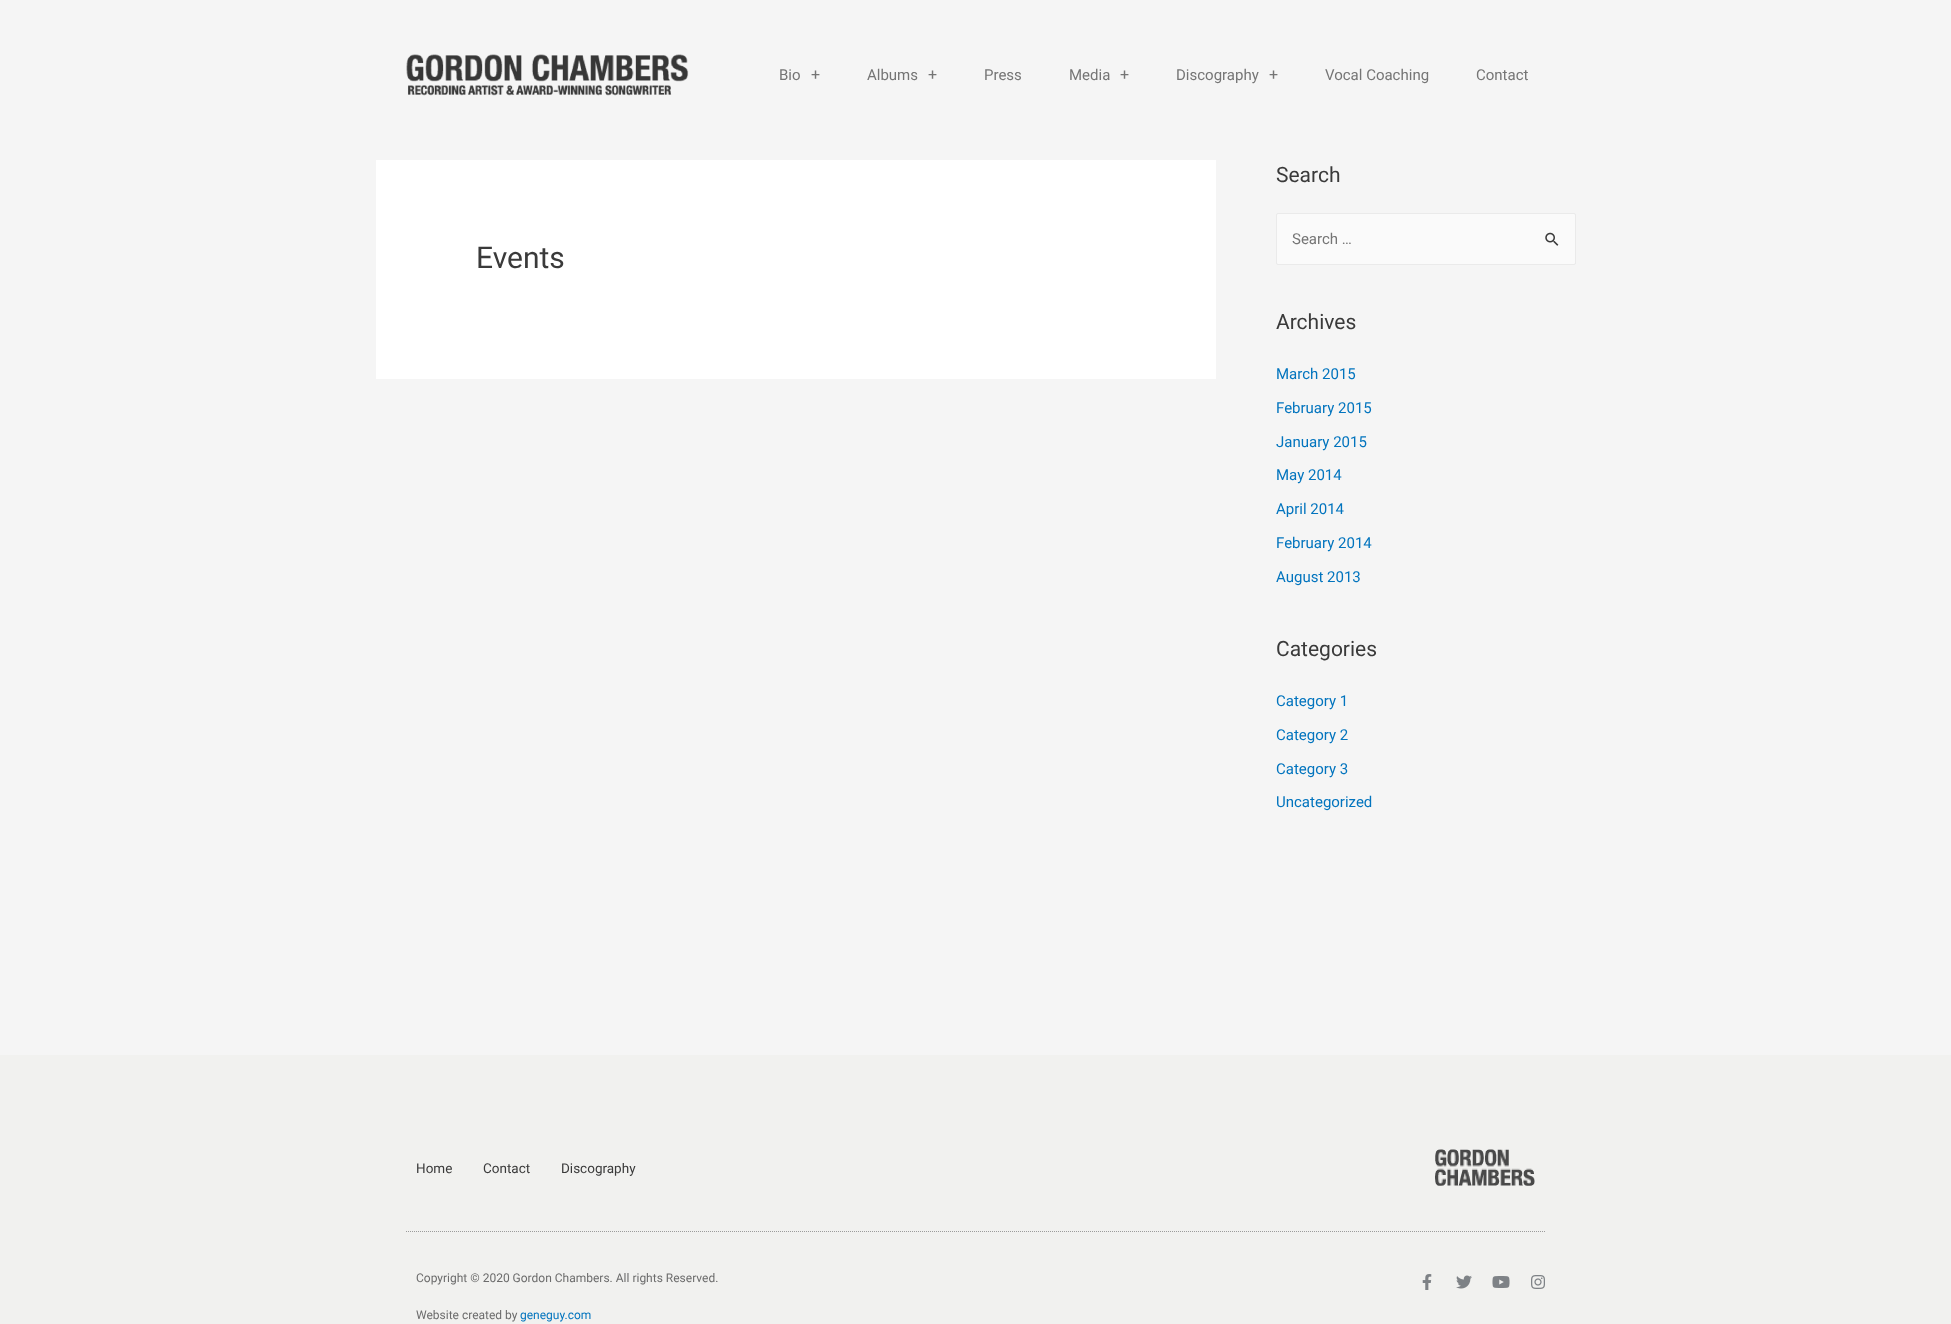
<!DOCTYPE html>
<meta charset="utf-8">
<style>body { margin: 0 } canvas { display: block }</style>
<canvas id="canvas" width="1951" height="1324"></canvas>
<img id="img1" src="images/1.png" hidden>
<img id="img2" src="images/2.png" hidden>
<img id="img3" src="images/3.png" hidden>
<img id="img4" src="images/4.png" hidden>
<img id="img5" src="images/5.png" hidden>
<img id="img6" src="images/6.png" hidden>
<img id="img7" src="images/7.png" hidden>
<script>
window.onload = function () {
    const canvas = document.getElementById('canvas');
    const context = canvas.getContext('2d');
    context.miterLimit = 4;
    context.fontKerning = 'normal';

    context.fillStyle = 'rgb(245, 245, 245)';
    context.fillRect(0, 0, 1951, 1324);
    context.drawImage(document.getElementById('img1'), 406, 54, 283, 42);
    context.fillStyle = 'rgb(255, 255, 255)';
    context.fillRect(376, 160, 840, 219);
    context.fillStyle = 'rgb(250, 250, 250)';
    context.beginPath();
    context.roundRect(1276.5, 213.5, 299, 51, 1.5);
    context.fill();
    context.strokeStyle = 'rgb(234, 234, 234)';
    context.stroke();
    context.drawImage(document.getElementById('img2'), 1545, 232, 14, 14);
    context.fillStyle = 'rgb(241, 241, 239)';
    context.fillRect(0, 1055, 1951, 269);
    context.beginPath();
    context.moveTo(406, 1231.5);
    context.lineTo(1546, 1231.5);
    context.strokeStyle = 'rgb(155, 155, 155)';
    context.setLineDash([1, 1]);
    context.stroke();
    context.drawImage(document.getElementById('img3'), 1435, 1149, 100, 37);
    context.drawImage(document.getElementById('img4'), 1422, 1274, 10, 16);
    context.drawImage(document.getElementById('img5'), 1456, 1275, 16, 14);
    context.drawImage(document.getElementById('img6'), 1492, 1276, 18, 12);
    context.drawImage(document.getElementById('img7'), 1531, 1275, 14, 14);
    context.font = '15px Roboto';
    context.fillStyle = 'rgb(117, 117, 117)';
    context.fillText('Bio', 779, 80);
    context.font = '16px Roboto';
    context.fillText('+', 811, 80);
    context.font = '15px Roboto';
    context.fillText('Albums', 867, 80);
    context.font = '16px Roboto';
    context.fillText('+', 928, 80);
    context.font = '15px Roboto';
    context.fillText('Press', 984, 80);
    context.fillText('Media', 1069, 80);
    context.font = '16px Roboto';
    context.fillText('+', 1120, 80);
    context.font = '15px Roboto';
    context.fillText('Discography', 1176, 80);
    context.font = '16px Roboto';
    context.fillText('+', 1269, 80);
    context.font = '15px Roboto';
    context.fillText('Vocal Coaching', 1325, 80);
    context.fillText('Contact', 1476, 80);
    context.font = '30px Roboto';
    context.fillStyle = 'rgb(58, 58, 58)';
    context.fillText('Events', 476, 268);
    context.font = '21px Roboto';
    context.fillText('Search', 1276, 182);
    context.font = '15px Roboto';
    context.fillStyle = 'rgb(117, 117, 117)';
    context.fillText('Search …', 1292, 244);
    context.font = '21px Roboto';
    context.fillStyle = 'rgb(58, 58, 58)';
    context.fillText('Archives', 1276, 329);
    context.font = '15px Roboto';
    context.fillStyle = 'rgb(2, 116, 190)';
    context.fillText('March 2015', 1276, 379);
    context.fillText('February 2015', 1276, 413);
    context.fillText('January 2015', 1276, 447);
    context.fillText('May 2014', 1276, 480);
    context.fillText('April 2014', 1276, 514);
    context.fillText('February 2014', 1276, 548);
    context.fillText('August 2013', 1276, 582);
    context.font = '21px Roboto';
    context.fillStyle = 'rgb(58, 58, 58)';
    context.fillText('Categories', 1276, 656);
    context.font = '15px Roboto';
    context.fillStyle = 'rgb(2, 116, 190)';
    context.fillText('Category 1', 1276, 706);
    context.fillText('Category 2', 1276, 740);
    context.fillText('Category 3', 1276, 774);
    context.fillText('Uncategorized', 1276, 807);
    context.font = '13.5px Roboto';
    context.fillStyle = 'rgb(58, 58, 58)';
    context.fillText('Home', 416, 1173);
    context.fillText('Contact', 483, 1173);
    context.fillText('Discography', 561, 1173);
    context.font = '12px Roboto';
    context.fillStyle = 'rgb(108, 108, 108)';
    context.fillText('Copyright © 2020 Gordon Chambers. All rights Reserved.', 416, 1282);
    context.fillText('Website created by', 416, 1319);
    context.fillStyle = 'rgb(2, 116, 190)';
    context.fillText('geneguy.com', 520, 1319);
};
</script>
